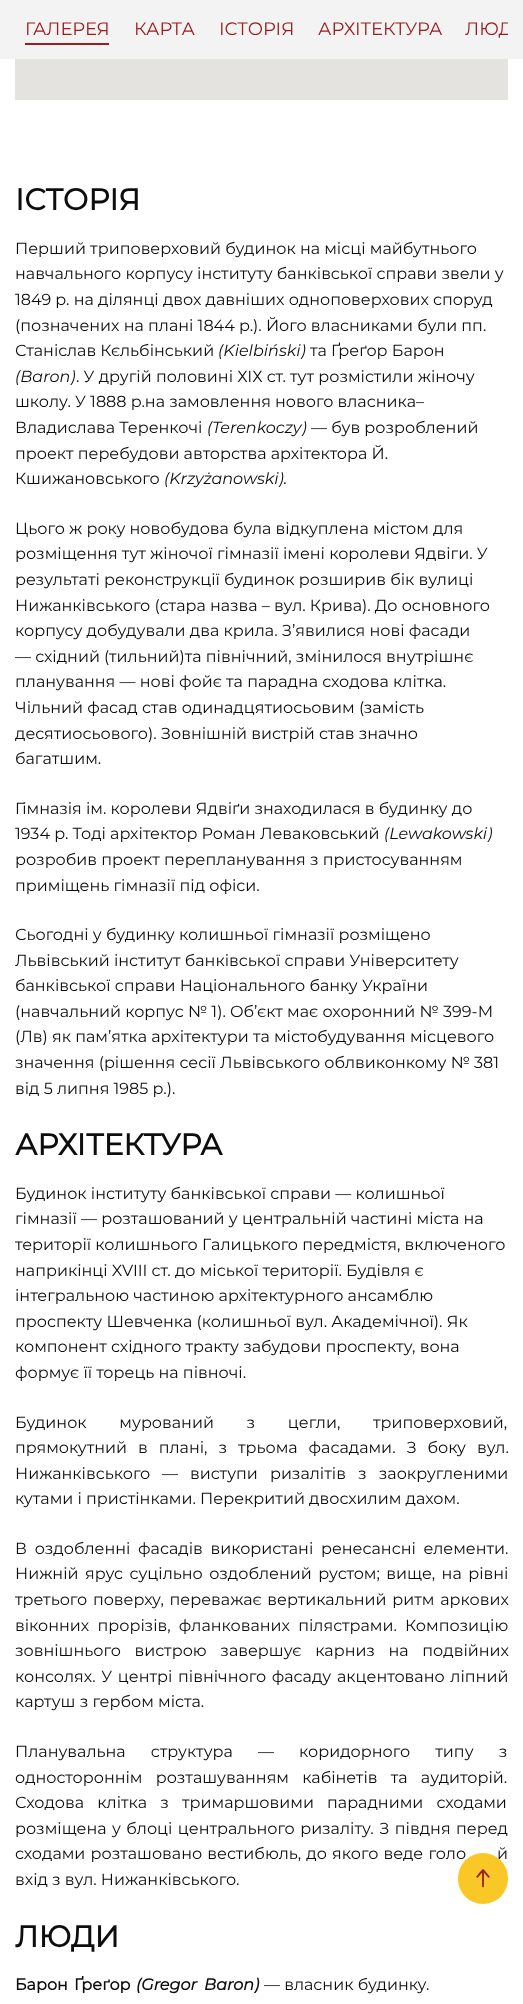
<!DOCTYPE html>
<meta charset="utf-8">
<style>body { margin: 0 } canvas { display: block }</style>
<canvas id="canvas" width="523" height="2004"></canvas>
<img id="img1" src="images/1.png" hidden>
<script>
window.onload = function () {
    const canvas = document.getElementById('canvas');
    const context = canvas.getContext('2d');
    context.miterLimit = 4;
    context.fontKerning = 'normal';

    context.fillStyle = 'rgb(255, 255, 255)';
    context.fillRect(0, 0, 523, 2004);
    context.fillStyle = 'rgb(243, 243, 243)';
    context.fillRect(0, 0, 523, 59);
    context.fillStyle = 'rgb(155, 29, 32)';
    context.fillRect(25, 43, 84, 2);
    context.fillStyle = 'rgb(229, 227, 223)';
    context.fillRect(15, 59, 493, 41);
    context.font = '18px Montserrat';
    context.fillStyle = 'rgb(155, 29, 32)';
    context.fillText('ГАЛЕРЕЯ', 25, 35);
    context.fillText('КАРТА', 134, 35);
    context.fillText('ІСТОРІЯ', 219, 35);
    context.fillText('АРХІТЕКТУРА', 318, 35);
    context.save();
    context.beginPath();
    context.rect(15, 8, 493, 43);
    context.clip();
    context.fillText('ЛЮД', 465, 35);
    context.restore();
    context.font = 'bold 30px Montserrat';
    context.fillStyle = 'rgb(13, 13, 13)';
    context.fillText('ІСТОРІЯ', 15, 210);
    context.font = '16px Montserrat';
    context.fillText('Перший триповерховий будинок на місці майбутнього', 15, 254);
    context.fillText('навчального корпусу інституту банківської справи звели у', 15, 279);
    context.fillText('1849 р. на ділянці двох давніших одноповерхових споруд', 15, 305);
    context.fillText('(позначених на плані 1844 р.). Його власниками були пп.', 15, 331);
    context.fillText('Станіслав Кєльбінський', 15, 356);
    context.font = 'italic 16px Montserrat';
    context.fillText('(Kielbiński)', 218, 356);
    context.font = '16px Montserrat';
    context.fillText('та Ґреґор Барон', 310, 356);
    context.font = 'italic 16px Montserrat';
    context.fillText('(Baron)', 15, 382);
    context.font = '16px Montserrat';
    context.fillText('. У другій половині ХІХ ст. тут розмістили жіночу', 76, 382);
    context.fillText('школу. У 1888 р.на замовлення нового власника–', 15, 407);
    context.fillText('Владислава Теренкочі', 15, 433);
    context.font = 'italic 16px Montserrat';
    context.fillText('(Terenkoczy)', 207, 433);
    context.font = '16px Montserrat';
    context.fillText('— був розроблений', 311, 433);
    context.fillText('проект перебудови авторства архітектора Й.', 15, 459);
    context.fillText('Кшижановського', 15, 484);
    context.font = 'italic 16px Montserrat';
    context.fillText('(Krzyżanowski).', 164, 484);
    context.font = '16px Montserrat';
    context.fillText('Цього ж року новобудова була відкуплена містом для', 15, 534);
    context.fillText('розміщення тут жіночої гімназії імені королеви Ядвіги. У', 15, 559);
    context.fillText('результаті реконструкції будинок розширив бік вулиці', 15, 585);
    context.fillText('Нижанківського (стара назва – вул. Крива). До основного', 15, 611);
    context.fillText('корпусу добудували два крила. З’явилися нові фасади', 15, 636);
    context.fillText('— східний (тильний)та північний, змінилося внутрішнє', 15, 662);
    context.fillText('планування — нові фойє та парадна сходова клітка.', 15, 687);
    context.fillText('Чільний фасад став одинадцятиосьовим (замість', 15, 713);
    context.fillText('десятиосьового). Зовнішній вистрій став значно', 15, 739);
    context.fillText('багатшим.', 15, 764);
    context.fillText('Гімназія ім. королеви Ядвіґи знаходилася в будинку до', 15, 814);
    context.fillText('1934 р. Тоді архітектор Роман Леваковський', 15, 839);
    context.font = 'italic 16px Montserrat';
    context.fillText('(Lewakowski)', 384, 839);
    context.font = '16px Montserrat';
    context.fillText('розробив проект перепланування з пристосуванням', 15, 865);
    context.fillText('приміщень гімназії під офіси.', 15, 891);
    context.fillText('Сьогодні у будинку колишньої гімназії розміщено', 15, 940);
    context.fillText('Львівський інститут банківської справи Університету', 15, 966);
    context.fillText('банківської справи Національного банку України', 15, 991);
    context.fillText('(навчальний корпус № 1). Об’єкт має охоронний № 399-М', 15, 1017);
    context.fillText('(Лв) як пам’ятка архітектури та містобудування місцевого', 15, 1042);
    context.fillText('значення (рішення сесії Львівського облвиконкому № 381', 15, 1068);
    context.fillText('від 5 липня 1985 р.).', 15, 1094);
    context.font = 'bold 30px Montserrat';
    context.fillText('АРХІТЕКТУРА', 15, 1155);
    context.font = '16px Montserrat';
    context.fillText('Будинок інституту банківської справи — колишньої', 15, 1199);
    context.fillText('гімназії — розташований у центральній частині міста на', 15, 1224);
    context.fillText('території колишнього Галицького передмістя, включеного', 15, 1250);
    context.fillText('наприкінці XVIII ст. до міської території. Будівля є', 15, 1276);
    context.fillText('інтегральною частиною архітектурного ансамблю', 15, 1301);
    context.fillText('проспекту Шевченка (колишньої вул. Академічної). Як', 15, 1327);
    context.fillText('компонент східного тракту забудови проспекту, вона', 15, 1352);
    context.fillText('формує її торець на півночі.', 15, 1378);
    context.wordSpacing = '28.5px';
    context.fillText('Будинок мурований з цегли, триповерховий,', 15, 1428);
    context.wordSpacing = '6.75px';
    context.fillText('прямокутний в плані, з трьома фасадами. З боку вул.', 15, 1453);
    context.wordSpacing = '0px';
    context.fillText('Нижанківського', 15, 1479);
    context.fillText('—', 162, 1479);
    context.wordSpacing = '8px';
    context.fillText('виступи ризалітів з заокругленими', 190, 1479);
    context.wordSpacing = '0px';
    context.fillText('кутами і пристінками. Перекритий двосхилим дахом.', 15, 1504);
    context.wordSpacing = '3.5px';
    context.fillText('В оздобленні фасадів використані ренесансні елементи.', 15, 1554);
    context.wordSpacing = '2.25px';
    context.fillText('Нижній ярус суцільно оздоблений рустом; вище, на рівні', 15, 1579);
    context.wordSpacing = '1.5px';
    context.fillText('третього поверху, переважає вертикальний ритм аркових', 15, 1605);
    context.wordSpacing = '4px';
    context.fillText('віконних прорізів, фланкованих пілястрами. Композицію', 15, 1631);
    context.wordSpacing = '9.5px';
    context.fillText('зовнішнього вистрою завершує карниз на подвійних', 15, 1656);
    context.wordSpacing = '1.5px';
    context.fillText('консолях. У центрі північного фасаду акцентовано ліпний', 15, 1682);
    context.wordSpacing = '0px';
    context.fillText('картуш з гербом міста.', 15, 1707);
    context.wordSpacing = '21px';
    context.fillText('Планувальна структура', 15, 1757);
    context.wordSpacing = '0px';
    context.fillText('—', 258, 1757);
    context.wordSpacing = '21px';
    context.fillText('коридорного типу з', 299, 1757);
    context.wordSpacing = '9px';
    context.fillText('одностороннім розташуванням кабінетів та аудиторій.', 15, 1783);
    context.fillText('Сходова клітка з тримаршовими парадними сходами', 15, 1808);
    context.wordSpacing = '1.25px';
    context.fillText('розміщена у блоці центрального ризаліту. З півдня перед', 15, 1834);
    context.wordSpacing = '1px';
    context.fillText('сходами розташовано вестибюль, до якого веде голо', 15, 1859);
    context.fillText('й', 497, 1859);
    context.wordSpacing = '0px';
    context.fillText('вхід з вул. Нижанківського.', 15, 1885);
    context.font = 'bold 30px Montserrat';
    context.fillText('ЛЮДИ', 15, 1947);
    context.wordSpacing = '2px';
    context.font = 'bold 16px Montserrat';
    context.fillText('Барон Ґреґор', 15, 1990);
    context.wordSpacing = '3px';
    context.font = 'italic bold 16px Montserrat';
    context.fillText('(Gregor Baron)', 136, 1990);
    context.wordSpacing = '0px';
    context.font = '16px Montserrat';
    context.fillText('— власник будинку.', 264, 1990);
    context.fillStyle = 'rgb(249, 199, 38)';
    context.beginPath();
    context.roundRect(458, 1853, 50, 51, 25);
    context.fill();
    context.drawImage(document.getElementById('img1'), 476, 1869, 14, 19);
};
</script>
